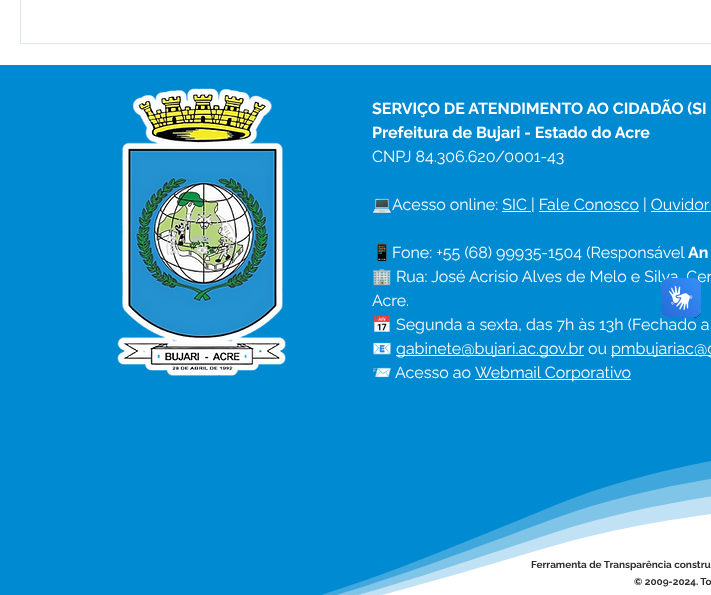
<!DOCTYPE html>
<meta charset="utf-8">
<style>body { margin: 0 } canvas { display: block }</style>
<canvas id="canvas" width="711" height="595"></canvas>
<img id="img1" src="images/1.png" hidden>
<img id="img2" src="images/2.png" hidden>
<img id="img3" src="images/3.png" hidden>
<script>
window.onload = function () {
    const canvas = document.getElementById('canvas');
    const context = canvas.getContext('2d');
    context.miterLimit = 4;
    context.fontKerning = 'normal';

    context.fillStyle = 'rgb(255, 255, 255)';
    context.fillRect(0, 0, 711, 595);
    context.strokeStyle = 'rgb(221, 232, 240)';
    context.strokeRect(20.5, -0.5, 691, 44);
    context.fillStyle = 'rgb(0, 138, 209)';
    context.fillRect(0, 65, 711, 530);
    context.drawImage(document.getElementById('img1'), 117, 88, 169, 288);
    context.fillStyle = 'rgb(255, 255, 255)';
    context.fillRect(502, 211, 29, 1);
    context.fillRect(539, 211, 100, 1);
    context.fillRect(651, 211, 60, 1);
    context.fillRect(396, 355, 188, 1);
    context.fillRect(611, 355, 100, 1);
    context.fillRect(475, 379, 156, 1);
    context.fillStyle = 'rgb(64, 167, 221)';
    context.beginPath();
    context.moveTo(0, 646);
    context.lineTo(0, 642);
    context.bezierCurveTo(232, 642, 353, 588, 553, 506);
    context.bezierCurveTo(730, 433, 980, 436, 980, 436);
    context.lineTo(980, 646);
    context.closePath();
    context.fill();
    context.fillStyle = 'rgb(128, 196, 232)';
    context.beginPath();
    context.moveTo(0, 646);
    context.lineTo(0, 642);
    context.bezierCurveTo(232, 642, 353, 593, 553, 519);
    context.bezierCurveTo(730, 454, 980, 456, 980, 456);
    context.lineTo(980, 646);
    context.closePath();
    context.fill();
    context.fillStyle = 'rgb(192, 226, 244)';
    context.beginPath();
    context.moveTo(0, 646);
    context.lineTo(0, 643);
    context.bezierCurveTo(232, 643, 353, 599, 553, 533);
    context.bezierCurveTo(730, 474, 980, 476, 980, 476);
    context.lineTo(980, 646);
    context.closePath();
    context.fill();
    context.fillStyle = 'rgb(255, 255, 255)';
    context.beginPath();
    context.moveTo(0, 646);
    context.lineTo(0, 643);
    context.bezierCurveTo(232, 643, 353, 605, 553, 546);
    context.bezierCurveTo(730, 494, 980, 496, 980, 496);
    context.lineTo(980, 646);
    context.closePath();
    context.fill();
    context.font = 'bold 16px Raleway';
    context.fillText('SERVIÇO DE ATENDIMENTO AO CIDADÃO (SI', 372, 114);
    context.fillText('Prefeitura de Bujari - Estado do Acre', 372, 138);
    context.font = '16px Raleway';
    context.fillText('CNPJ 84.306.620/0001-43', 372, 162);
    context.font = '16px Noto Color Emoji';
    context.fillText('💻', 372, 210);
    context.font = '16px Raleway';
    context.fillText('Acesso online: SIC | Fale Conosco | Ouvidor', 392, 210);
    context.font = '16px Noto Color Emoji';
    context.fillText('📱', 372, 258);
    context.font = '16px Raleway';
    context.fillText('Fone: +55 (68) 99935-1504 (Responsável', 392, 258);
    context.font = 'bold 16px Raleway';
    context.fillText('An', 688, 258);
    context.font = '16px Noto Color Emoji';
    context.fillText('🏢', 372, 282);
    context.font = '16px Raleway';
    context.fillText('Rua: José Acrisio Alves de Melo e Silva, Cer', 396, 282);
    context.fillText('Acre.', 372, 306);
    context.font = '16px Noto Color Emoji';
    context.fillText('📅', 372, 330);
    context.font = '16px Raleway';
    context.fillText('Segunda a sexta, das 7h às 13h (Fechado a', 396, 330);
    context.font = '16px Noto Color Emoji';
    context.fillText('📧', 372, 354);
    context.font = '16px Raleway';
    context.fillText('gabinete@bujari.ac.gov.br', 396, 354);
    context.fillText('ou', 588, 354);
    context.fillText('pmbujariac@g', 611, 354);
    context.font = '16px Noto Color Emoji';
    context.fillText('📨', 372, 378);
    context.font = '16px Raleway';
    context.fillText('Acesso ao', 395, 378);
    context.fillText('Webmail Corporativo', 475, 378);
    context.font = 'bold 10px Raleway';
    context.fillStyle = 'rgb(47, 46, 46)';
    context.fillText('Ferramenta de Transparência constru', 531, 568);
    context.fillText('© 2009-2024. To', 634, 585);
    context.drawImage(document.getElementById('img2'), 661, 278, 40, 40);
    context.drawImage(document.getElementById('img3'), 661, 278, 40, 40);
};
</script>
